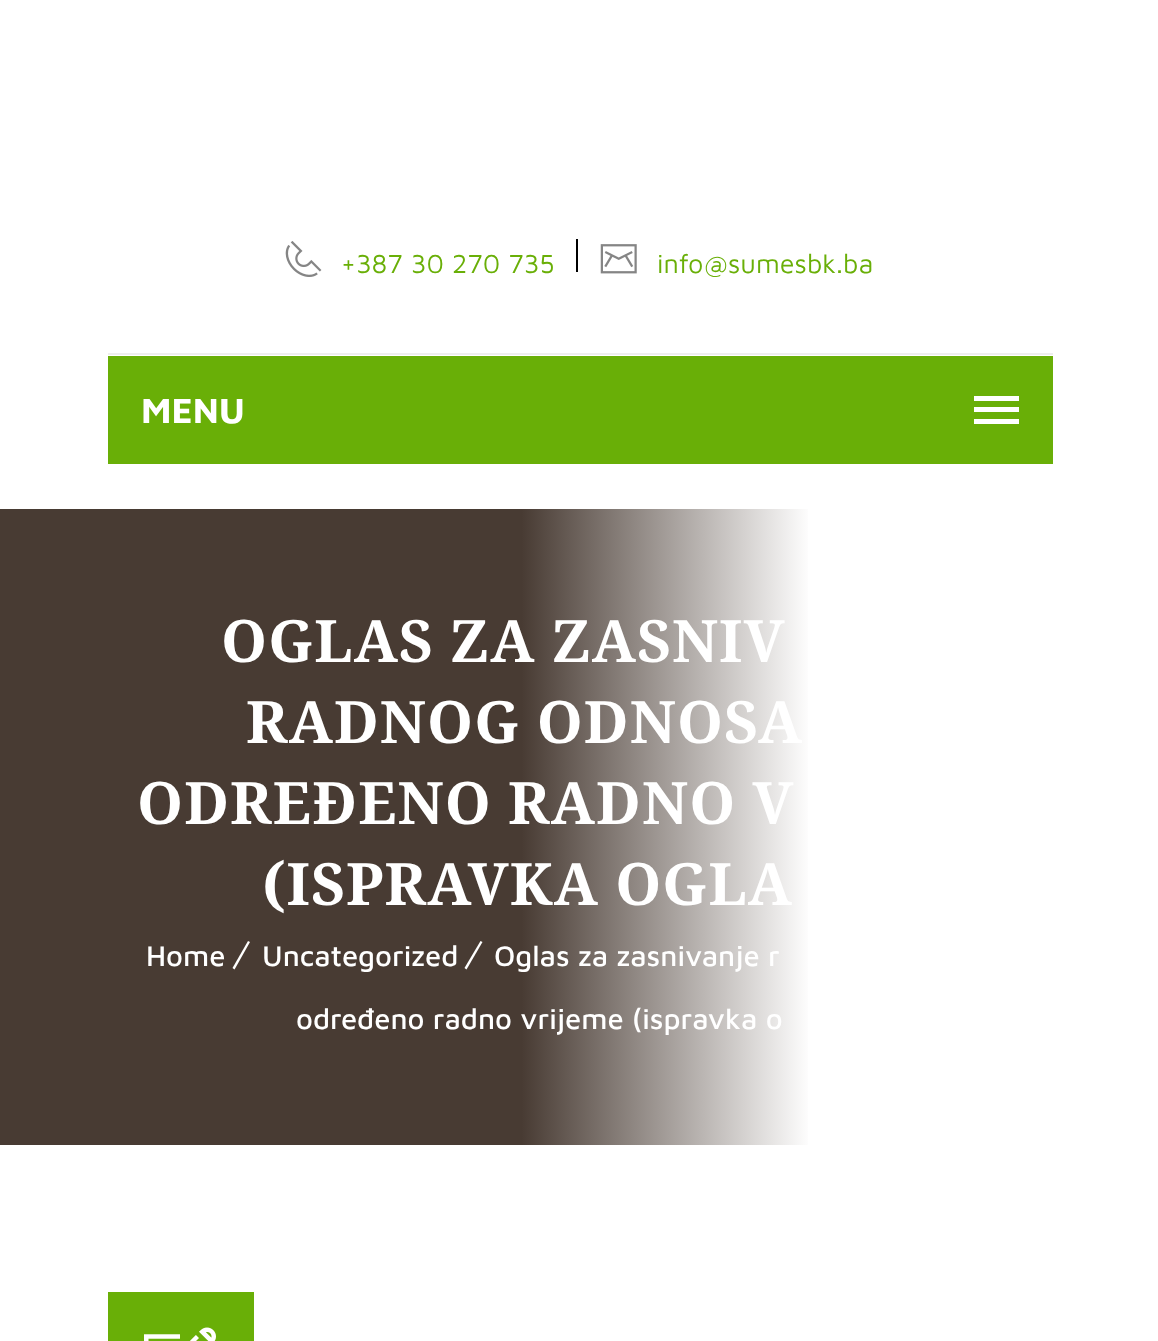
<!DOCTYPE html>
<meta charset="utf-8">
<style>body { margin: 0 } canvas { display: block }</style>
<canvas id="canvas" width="1158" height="1341"></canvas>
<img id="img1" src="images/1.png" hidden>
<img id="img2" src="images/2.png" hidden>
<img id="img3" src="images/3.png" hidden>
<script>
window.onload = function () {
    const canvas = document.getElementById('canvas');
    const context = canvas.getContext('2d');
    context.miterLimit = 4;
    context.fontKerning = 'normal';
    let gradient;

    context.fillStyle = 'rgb(255, 255, 255)';
    context.fillRect(0, 0, 1158, 1341);
    context.drawImage(document.getElementById('img1'), 285, 241, 37, 36);
    context.fillStyle = 'rgb(0, 0, 0)';
    context.fillRect(576, 239, 2, 33);
    context.drawImage(document.getElementById('img2'), 600, 244, 37, 30);
    context.fillStyle = 'rgb(238, 238, 238)';
    context.fillRect(108, 353, 945, 2);
    context.fillStyle = 'rgb(105, 175, 7)';
    context.fillRect(108, 356, 945, 108);
    context.fillStyle = 'rgb(255, 255, 255)';
    context.fillRect(974, 407, 45, 5);
    context.fillRect(974, 396, 45, 5);
    context.fillRect(974, 419, 45, 5);
    gradient = context.createLinearGradient(0, 827, 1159, 827);
    gradient.addColorStop(0.45, 'rgb(72, 59, 51)');
    gradient.addColorStop(0.7, 'rgb(255, 255, 255)');
    context.fillStyle = gradient;
    context.fillRect(0, 509, 808, 636);
    context.fillStyle = 'rgb(255, 255, 255)';
    context.beginPath();
    context.moveTo(248, 941);
    context.lineTo(250, 942);
    context.lineTo(234.5, 969.5);
    context.lineTo(232.5, 968);
    context.closePath();
    context.fill();
    context.beginPath();
    context.moveTo(480.5, 941);
    context.lineTo(482.5, 942);
    context.lineTo(466.5, 969.5);
    context.lineTo(464.5, 968);
    context.closePath();
    context.fill();
    context.fillStyle = 'rgb(105, 175, 7)';
    context.fillRect(108, 1292, 146, 49);
    context.drawImage(document.getElementById('img3'), 144, 1327, 72, 14);
    context.font = '27px Maven Pro';
    context.fillText('+387 30 270 735', 341, 273);
    context.fillText('info@sumesbk.ba', 657, 273);
    context.font = 'bold 36px Maven Pro';
    context.fillStyle = 'rgb(255, 255, 255)';
    context.fillText('MENU', 141, 423);
    context.letterSpacing = '1.1px';
    context.font = 'bold 58.5px Noto Serif';
    context.fillText('OGLAS ZA ZASNIV', 221, 662);
    context.fillText('RADNOG ODNOSA', 246, 743);
    context.fillText('ODREĐENO RADNO V', 137, 824);
    context.fillText('(ISPRAVKA OGLA', 262, 905);
    context.letterSpacing = '0px';
    context.font = '500 29.25px Maven Pro';
    context.fillText('Home', 146, 966);
    context.fillText('Uncategorized', 262, 966);
    context.fillText('Oglas za zasnivanje r', 494, 966);
    context.fillText('određeno radno vrijeme (ispravka o', 296, 1029);
};
</script>
